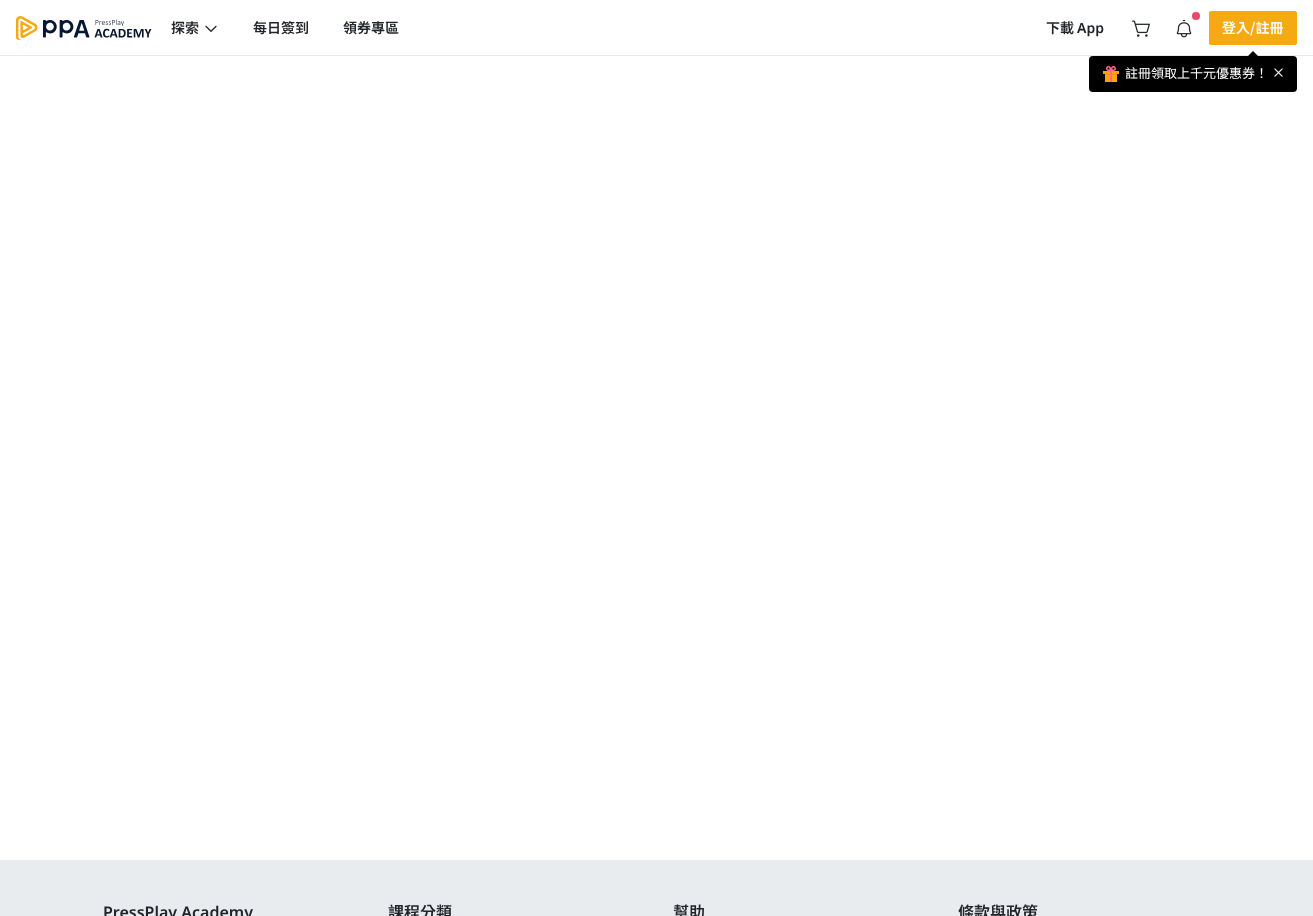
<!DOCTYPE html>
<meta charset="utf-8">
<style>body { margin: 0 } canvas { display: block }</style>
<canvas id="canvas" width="1313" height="916"></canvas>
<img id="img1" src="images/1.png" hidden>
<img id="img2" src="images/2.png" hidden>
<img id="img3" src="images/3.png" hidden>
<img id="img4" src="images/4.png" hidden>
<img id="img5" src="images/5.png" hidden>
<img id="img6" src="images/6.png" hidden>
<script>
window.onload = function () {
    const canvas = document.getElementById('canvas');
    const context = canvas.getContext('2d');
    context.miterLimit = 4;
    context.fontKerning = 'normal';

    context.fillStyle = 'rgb(255, 255, 255)';
    context.fillRect(0, 0, 1313, 916);
    context.fillStyle = 'rgb(233, 236, 239)';
    context.fillRect(0, 55, 1313, 1);
    context.drawImage(document.getElementById('img1'), 16, 16, 136, 24);
    context.drawImage(document.getElementById('img2'), 205, 25, 12, 7);
    context.drawImage(document.getElementById('img3'), 1132, 20, 18, 17);
    context.fillStyle = 'rgb(232, 73, 103)';
    context.beginPath();
    context.arc(1196, 16, 4, 0, 2 * Math.PI);
    context.fill();
    context.drawImage(document.getElementById('img4'), 1176, 19, 16, 19);
    context.fillStyle = 'rgb(244, 170, 16)';
    context.beginPath();
    context.roundRect(1209.5, 11.5, 87, 33, 1.5);
    context.fill();
    context.strokeStyle = 'rgb(244, 170, 16)';
    context.stroke();
    context.fillStyle = 'rgb(0, 0, 0)';
    context.beginPath();
    context.moveTo(1258, 56);
    context.lineTo(1248, 56);
    context.lineTo(1253, 51);
    context.closePath();
    context.fill();
    context.beginPath();
    context.roundRect(1089, 56, 208, 36, 4);
    context.fill();
    context.drawImage(document.getElementById('img5'), 1103, 66, 16, 16);
    context.drawImage(document.getElementById('img6'), 1274, 68, 9, 9);
    context.fillStyle = 'rgb(233, 236, 239)';
    context.fillRect(0, 860, 1313, 56);
    context.font = '600 14px Noto Sans TC';
    context.fillStyle = 'rgb(33, 37, 41)';
    context.fillText('探索', 171, 33);
    context.fillText('每日簽到', 253, 33);
    context.fillText('領券專區', 343, 33);
    context.fillText('下載', 1046, 33);
    context.font = '600 14px Noto Sans';
    context.fillText('App', 1077, 33);
    context.font = '600 14px Noto Sans TC';
    context.fillStyle = 'rgb(255, 255, 255)';
    context.fillText('登入/註冊', 1222, 33);
    context.font = '13px Noto Sans TC';
    context.fillText('註冊領取上千元優惠券！', 1125, 78);
    context.font = '600 16px Noto Sans';
    context.fillStyle = 'rgb(33, 37, 41)';
    context.fillText('PressPlay Academy', 103, 918);
    context.font = '600 16px Noto Sans TC';
    context.fillText('課程分類', 388, 918);
    context.fillText('幫助', 673, 918);
    context.fillText('條款與政策', 958, 918);
};
</script>
